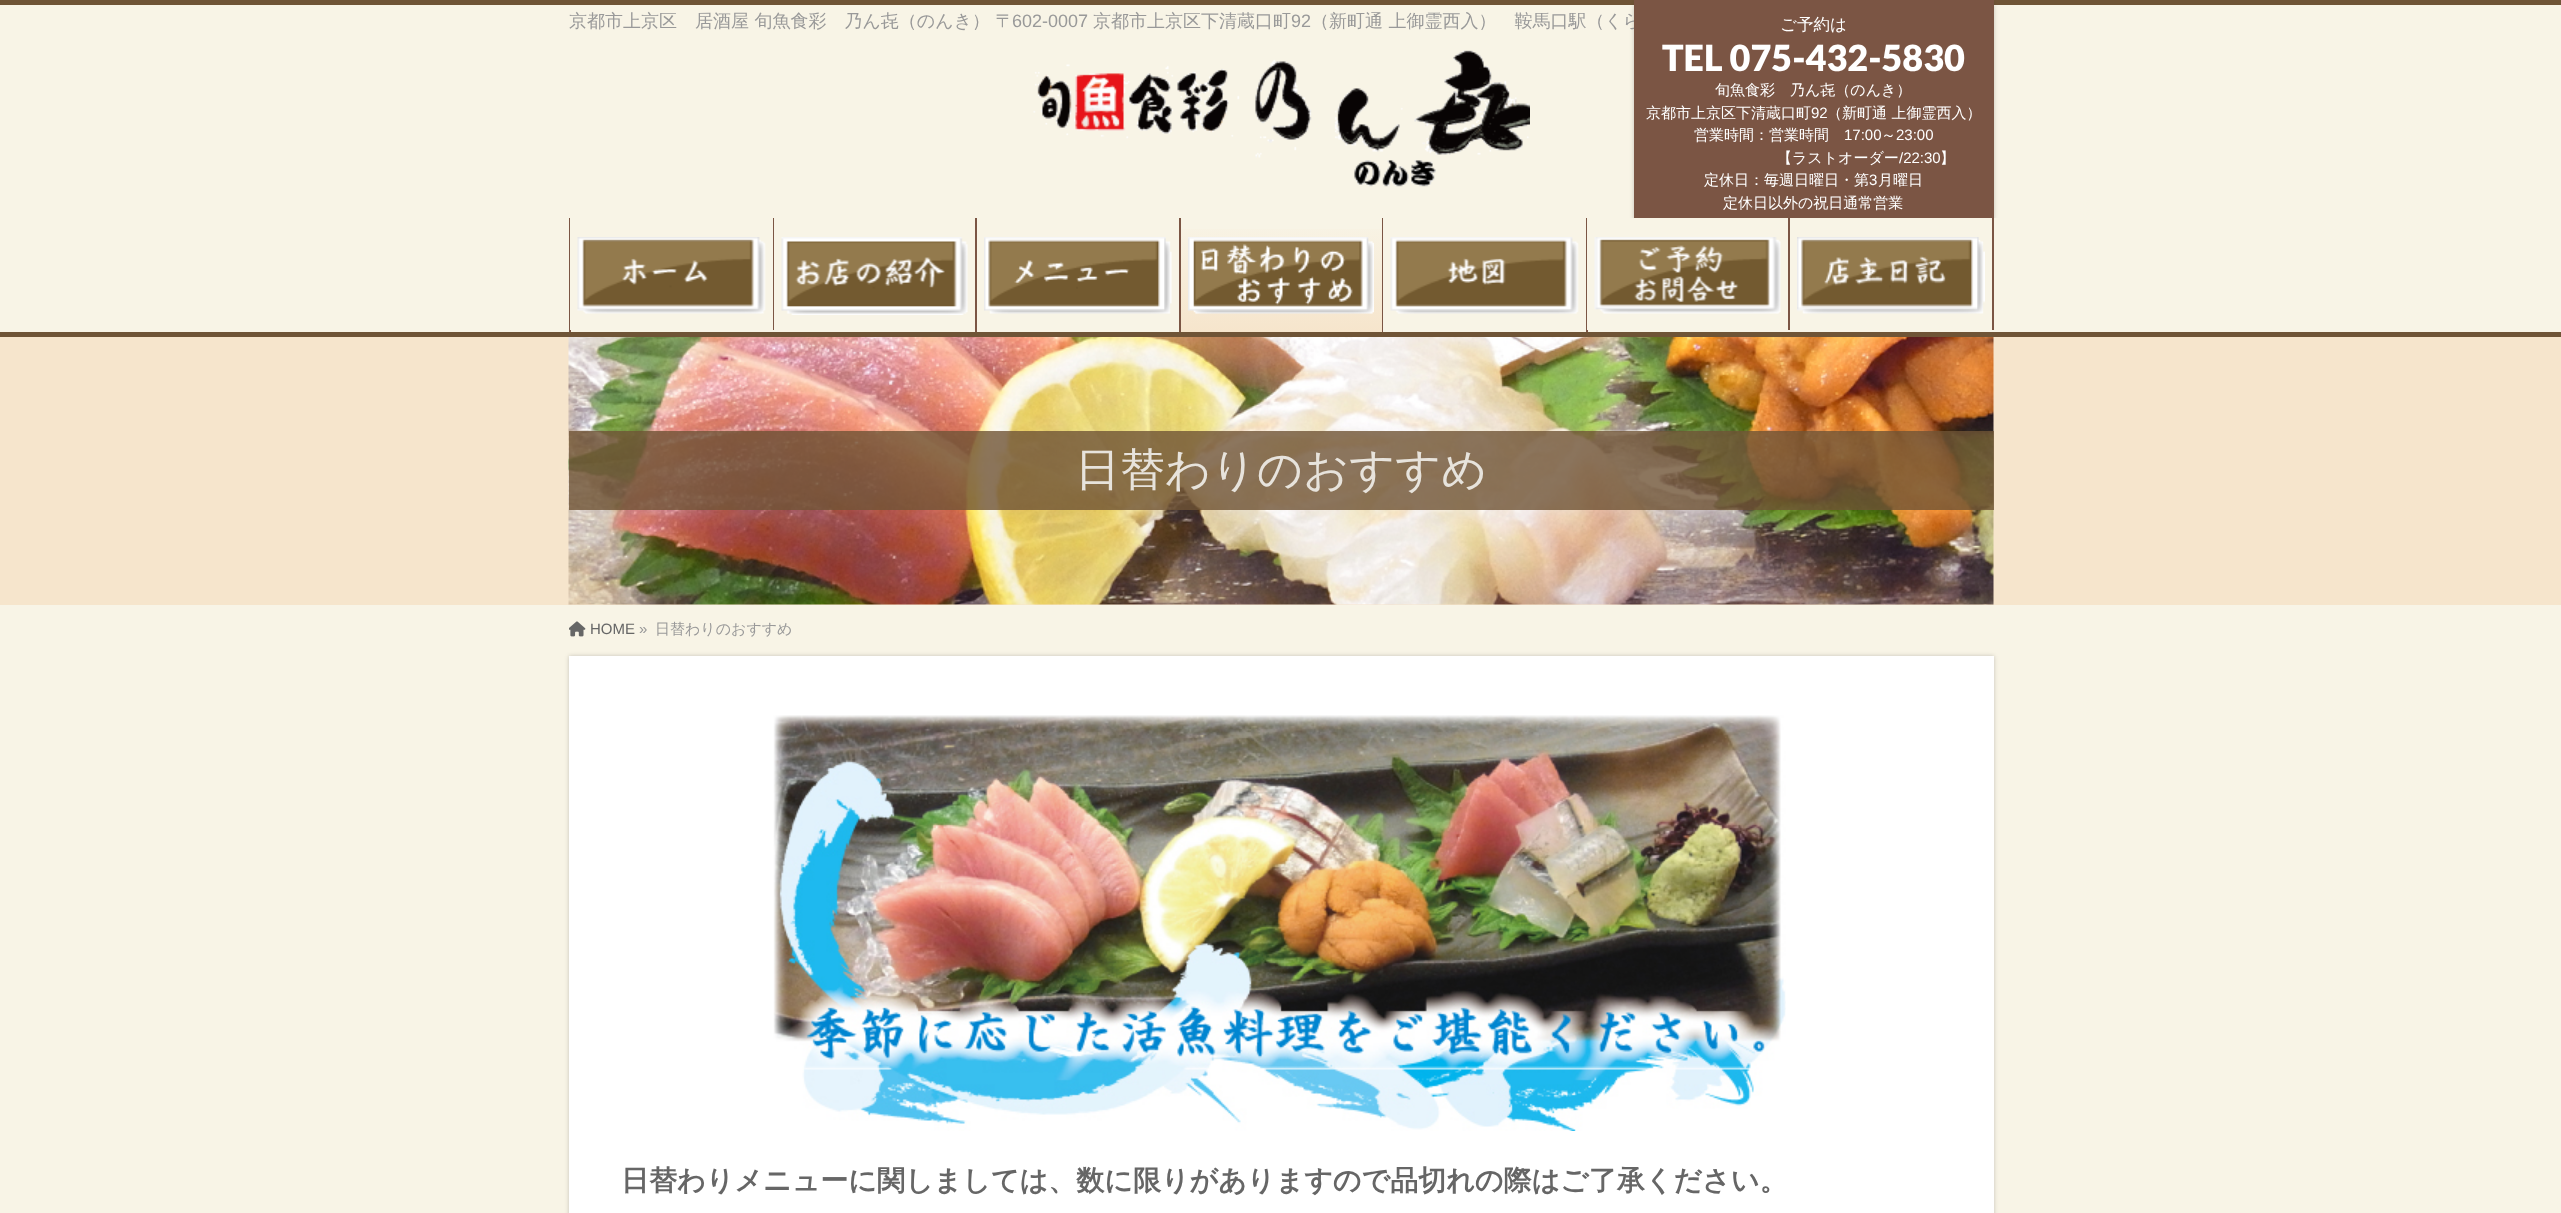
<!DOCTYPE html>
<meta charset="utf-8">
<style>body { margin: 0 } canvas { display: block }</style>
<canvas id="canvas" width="2561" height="1213"></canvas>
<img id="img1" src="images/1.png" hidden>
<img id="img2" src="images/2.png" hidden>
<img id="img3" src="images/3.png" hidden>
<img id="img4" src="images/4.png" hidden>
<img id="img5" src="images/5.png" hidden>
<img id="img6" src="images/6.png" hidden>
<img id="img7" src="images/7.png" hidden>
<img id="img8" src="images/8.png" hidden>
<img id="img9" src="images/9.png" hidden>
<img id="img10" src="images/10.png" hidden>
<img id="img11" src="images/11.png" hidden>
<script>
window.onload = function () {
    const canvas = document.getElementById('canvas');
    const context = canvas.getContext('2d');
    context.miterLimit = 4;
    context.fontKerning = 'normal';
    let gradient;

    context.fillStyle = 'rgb(246, 229, 204)';
    context.fillRect(0, 0, 2561, 1213);
    context.fillStyle = 'rgb(111, 84, 54)';
    context.fillRect(0, 0, 2561, 5);
    context.fillStyle = 'rgb(248, 244, 230)';
    context.fillRect(0, 5, 2561, 213);
    context.drawImage(document.getElementById('img1'), 1033, 50, 497, 137);
    context.fillStyle = 'rgba(0, 0, 0, 0.2)';
    context.filter = 'blur(2px)';
    context.beginPath();
    context.roundRect(1634, 0, 360, 227, 9);
    context.fill();
    context.filter = 'none';
    context.fillStyle = 'rgb(248, 244, 230)';
    context.fillRect(0, 218, 2561, 114);
    context.fillStyle = 'rgb(111, 84, 54)';
    context.fillRect(0, 332, 2561, 5);
    context.fillStyle = 'rgb(123, 85, 68)';
    context.fillRect(569, 218, 2, 114);
    context.fillStyle = 'rgb(248, 244, 230)';
    context.fillRect(570, 218, 1, 112);
    context.fillStyle = 'rgb(123, 85, 68)';
    context.fillRect(773, 218, 1, 112);
    context.drawImage(document.getElementById('img2'), 577, 237, 189, 77);
    context.fillRect(975, 218, 2, 114);
    context.drawImage(document.getElementById('img3'), 781, 237, 187, 78);
    context.fillRect(1179, 218, 2, 114);
    context.drawImage(document.getElementById('img4'), 984, 237, 188, 77);
    gradient = context.createLinearGradient(1281, 218, 1281, 332);
    gradient.addColorStop(0, 'rgb(248, 244, 230)');
    gradient.addColorStop(1, 'rgb(246, 229, 204)');
    context.fillStyle = gradient;
    context.fillRect(1181, 229, 201, 103);
    context.fillStyle = 'rgb(123, 85, 68)';
    context.fillRect(1382, 218, 1, 114);
    context.drawImage(document.getElementById('img5'), 1188, 237, 186, 77);
    context.fillRect(1586, 218, 2, 114);
    context.drawImage(document.getElementById('img6'), 1390, 237, 189, 77);
    context.fillStyle = 'rgb(248, 244, 230)';
    context.fillRect(1587, 218, 1, 112);
    context.fillStyle = 'rgb(123, 85, 68)';
    context.fillRect(1788, 218, 2, 112);
    context.drawImage(document.getElementById('img7'), 1594, 237, 187, 77);
    context.fillRect(1992, 218, 2, 112);
    context.drawImage(document.getElementById('img8'), 1797, 237, 188, 77);
    context.drawImage(document.getElementById('img9'), 568, 337, 1426, 268);
    context.fillStyle = 'rgba(111, 84, 54, 0.8)';
    context.fillRect(569, 431, 1425, 79);
    context.fillStyle = 'rgb(248, 244, 230)';
    context.fillRect(0, 605, 2561, 608);
    context.drawImage(document.getElementById('img10'), 569, 621, 17, 16);
    context.fillStyle = 'rgba(0, 0, 0, 0.2)';
    context.filter = 'blur(2px)';
    context.beginPath();
    context.rect(569, 656, 1425, 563);
    context.fill();
    context.filter = 'none';
    context.fillStyle = 'rgb(255, 255, 255)';
    context.fillRect(569, 656, 1425, 557);
    context.drawImage(document.getElementById('img11'), 773, 715, 1013, 416);
    context.font = '500 18px WenQuanYi Zen Hei';
    context.fillStyle = 'rgb(153, 153, 153)';
    context.fillText('京都市上京区　居酒屋 旬魚食彩　乃ん㐂（のんき） 〒', 569, 27);
    context.font = '18px Liberation Sans';
    context.fillText('602-0007', 1012, 27);
    context.font = '500 18px WenQuanYi Zen Hei';
    context.fillText('京都市上京区下清蔵口町', 1093, 27);
    context.font = '18px Liberation Sans';
    context.fillText('92', 1291, 27);
    context.font = '500 18px WenQuanYi Zen Hei';
    context.fillText('（新町通 上御霊西入）　鞍馬口駅（くら', 1311, 27);
    context.fillStyle = 'rgb(123, 85, 68)';
    context.fillRect(1634, 0, 360, 218);
    context.font = '500 16.5px WenQuanYi Zen Hei';
    context.fillStyle = 'rgb(255, 255, 255)';
    context.fillText('ご予約は', 1780, 30);
    context.font = '900 36px Lato';
    context.fillText('TEL 075-432-5830', 1662, 71);
    context.font = '500 15px WenQuanYi Zen Hei';
    context.fillText('旬魚食彩　乃ん㐂（のんき）', 1715, 95);
    context.fillText('京都市上京区下清蔵口町', 1646, 118);
    context.font = '15px Liberation Sans';
    context.fillText('92', 1811, 118);
    context.font = '500 15px WenQuanYi Zen Hei';
    context.fillText('（新町通 上御霊西入）', 1827, 118);
    context.fillText('営業時間：営業時間', 1694, 140);
    context.font = '15px Liberation Sans';
    context.fillText('17:00', 1844, 140);
    context.font = '500 15px WenQuanYi Zen Hei';
    context.fillText('～', 1881, 140);
    context.font = '15px Liberation Sans';
    context.fillText('23:00', 1896, 140);
    context.font = '500 15px WenQuanYi Zen Hei';
    context.fillText('【ラストオーダー', 1777, 163);
    context.font = '15px Liberation Sans';
    context.fillText('/22:30', 1899, 163);
    context.font = '500 15px WenQuanYi Zen Hei';
    context.fillText('】', 1940, 163);
    context.fillText('定休日：毎週日曜日・第', 1704, 185);
    context.font = '15px Liberation Sans';
    context.fillText('3', 1869, 185);
    context.font = '500 15px WenQuanYi Zen Hei';
    context.fillText('月曜日', 1878, 185);
    context.fillText('定休日以外の祝日通常営業', 1723, 208);
    context.font = '500 45px WenQuanYi Zen Hei';
    context.fillStyle = 'rgb(231, 227, 220)';
    context.fillText('日替わりのおすすめ', 1075, 485);
    context.font = '15px Liberation Sans';
    context.fillStyle = 'rgb(102, 102, 102)';
    context.fillText('HOME', 590, 634);
    context.fillStyle = 'rgb(153, 153, 153)';
    context.fillText('»', 639, 634);
    context.font = '500 15px WenQuanYi Zen Hei';
    context.fillText('日替わりのおすすめ', 655, 634);
    context.font = 'bold 28px WenQuanYi Zen Hei';
    context.fillStyle = 'rgb(102, 102, 102)';
    context.fillText('日替わりメニューに関しましては、数に限りがありますので品切れの際はご了承ください。', 621, 1190);
};
</script>
